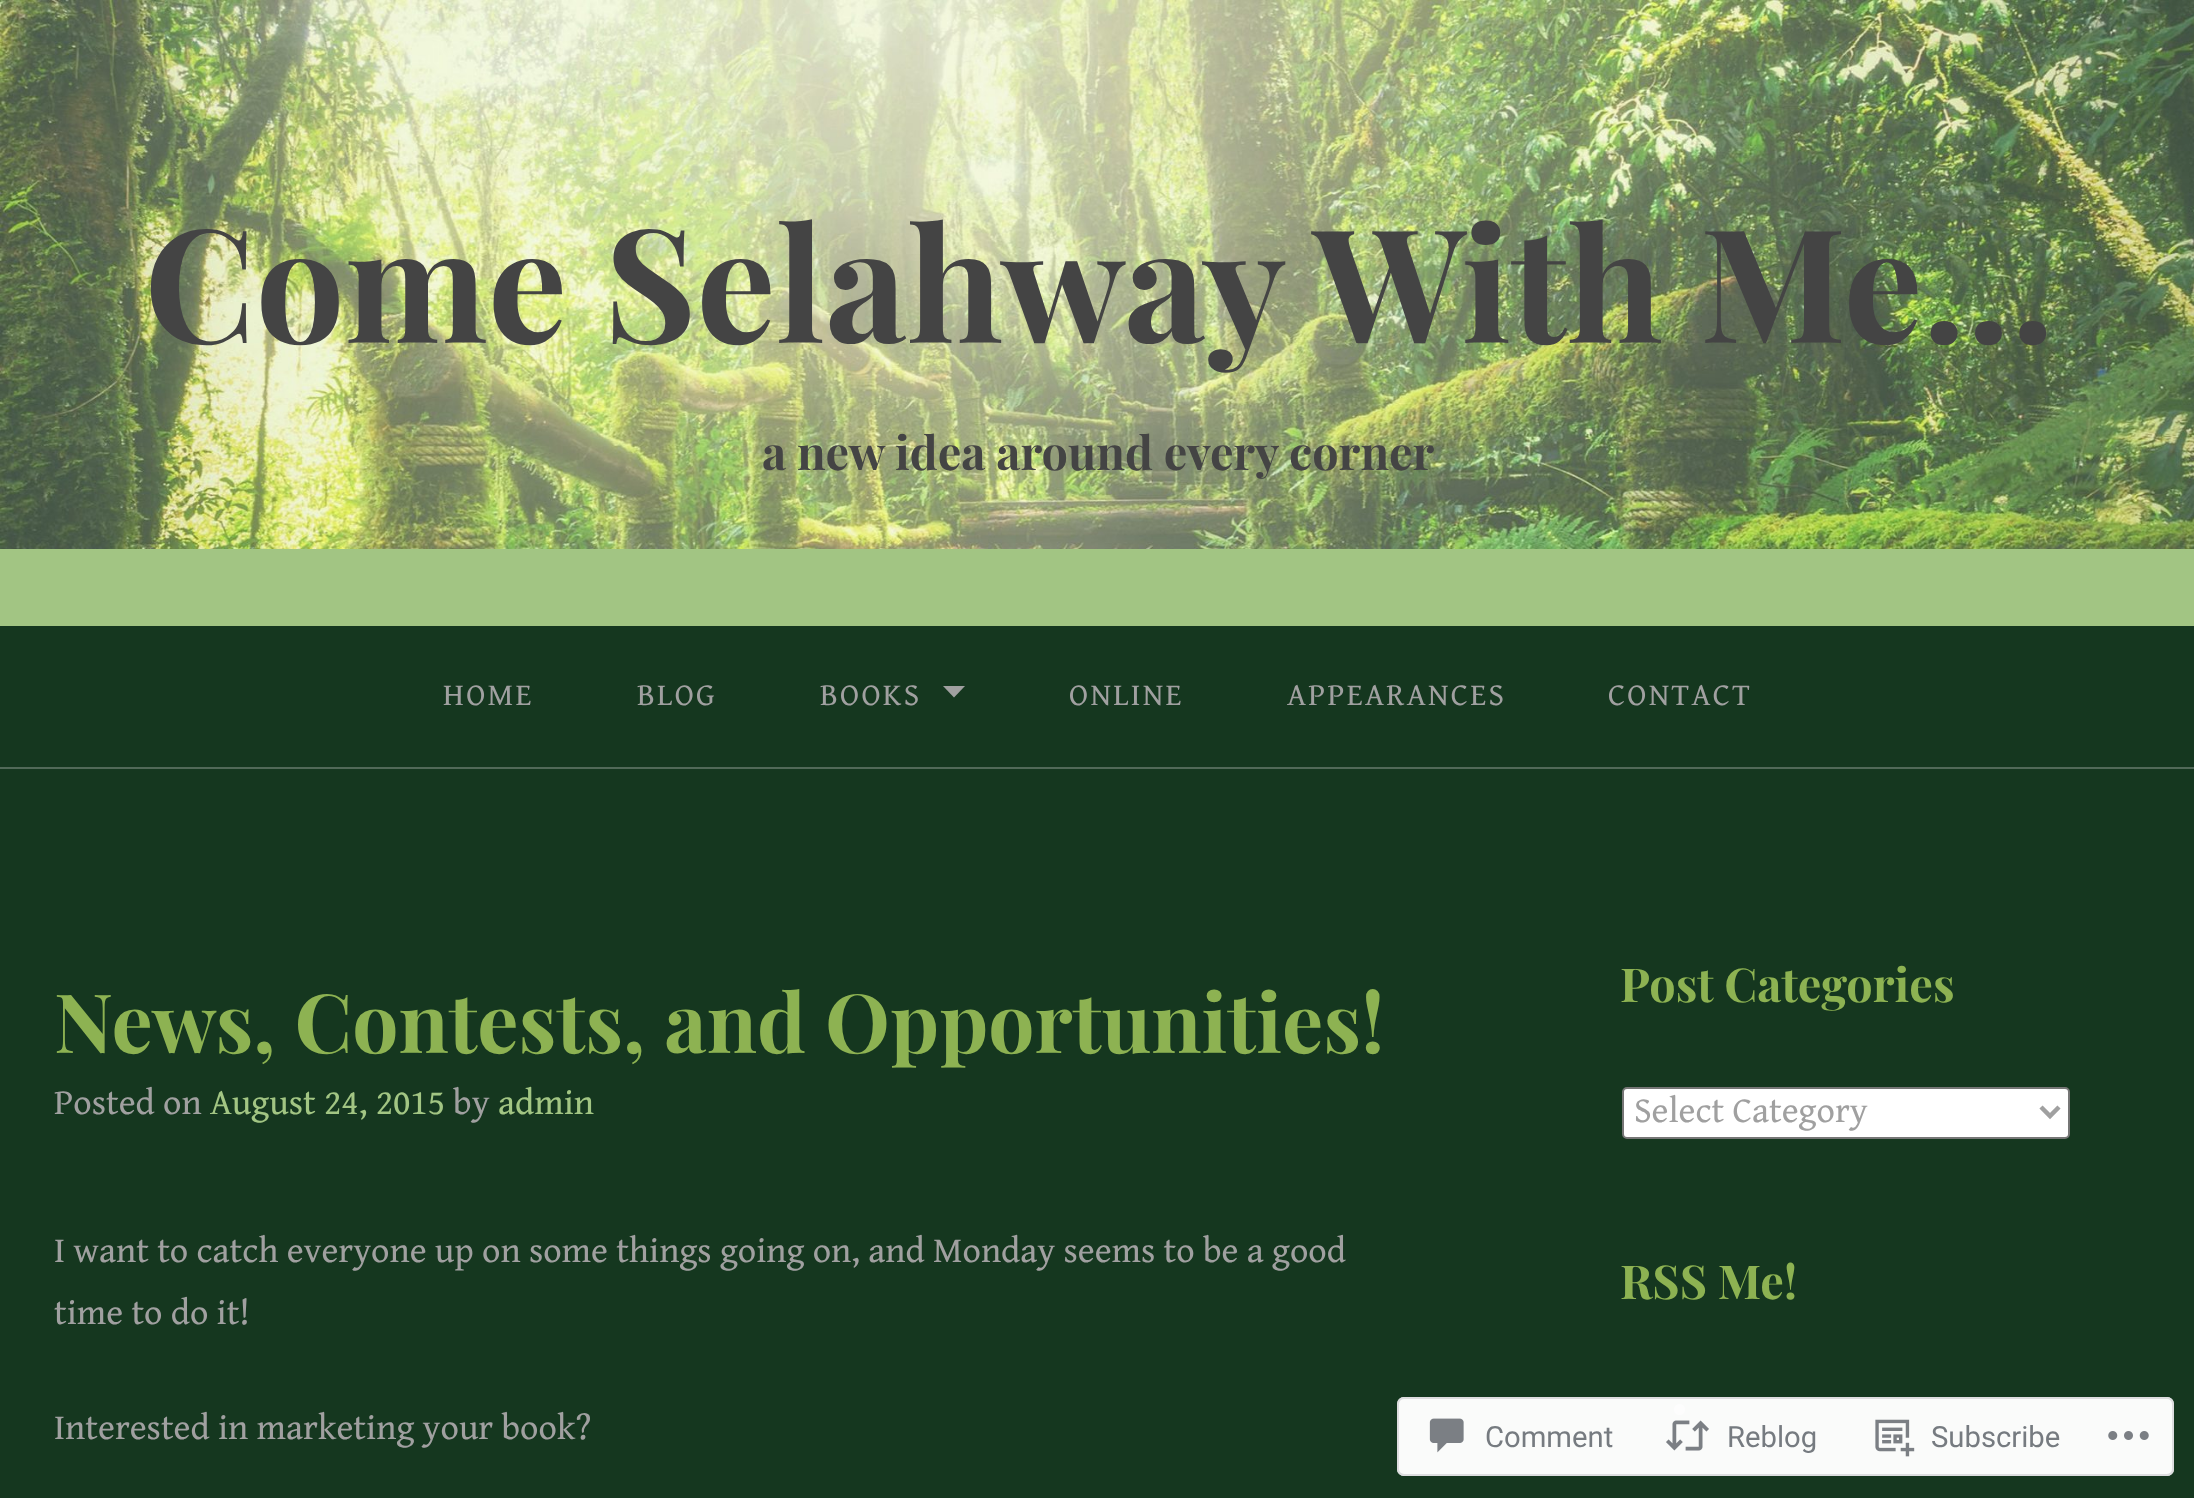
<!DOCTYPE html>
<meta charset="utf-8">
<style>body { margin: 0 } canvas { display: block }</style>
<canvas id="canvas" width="2194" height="1498"></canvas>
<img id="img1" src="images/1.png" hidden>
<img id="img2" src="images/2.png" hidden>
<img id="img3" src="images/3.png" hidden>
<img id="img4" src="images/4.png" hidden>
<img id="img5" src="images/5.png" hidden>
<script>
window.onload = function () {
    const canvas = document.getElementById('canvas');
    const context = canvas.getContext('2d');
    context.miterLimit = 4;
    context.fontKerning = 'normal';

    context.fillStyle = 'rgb(21, 55, 31)';
    context.fillRect(0, 0, 2194, 1498);
    context.fillStyle = 'rgb(162, 197, 131)';
    context.fillRect(0, 549, 2194, 77);
    context.drawImage(document.getElementById('img1'), 0, 0, 2194, 549);
    context.fillStyle = 'rgb(81, 105, 88)';
    context.fillRect(0, 767, 2194, 2);
    context.fillStyle = 'rgb(160, 160, 160)';
    context.beginPath();
    context.moveTo(943, 686);
    context.lineTo(965, 686);
    context.lineTo(954, 697.5);
    context.closePath();
    context.fill();
    context.fillStyle = 'rgb(255, 255, 255)';
    context.beginPath();
    context.roundRect(1623, 1088, 446, 50, 4);
    context.fill();
    context.strokeStyle = 'rgb(118, 118, 118)';
    context.lineWidth = 2;
    context.stroke();
    context.beginPath();
    context.moveTo(2041, 1107);
    context.lineTo(2050, 1116);
    context.lineTo(2059, 1107);
    context.strokeStyle = 'rgb(160, 160, 160)';
    context.lineWidth = 4.5;
    context.stroke();
    context.fillStyle = 'rgb(160, 160, 160)';
    context.beginPath();
    context.arc(1679.5, 1409.5, 5.5, 0, 2 * Math.PI);
    context.fill();
    context.fillStyle = 'rgba(255, 255, 255, 0.98)';
    context.beginPath();
    context.roundRect(1397, 1397, 777, 79, 7);
    context.fill();
    context.beginPath();
    context.roundRect(1398, 1398, 775, 77, 6);
    context.strokeStyle = 'rgba(220, 220, 222, 0.98)';
    context.lineWidth = 2;
    context.stroke();
    context.drawImage(document.getElementById('img2'), 1429, 1418, 35, 35);
    context.drawImage(document.getElementById('img3'), 1666, 1420, 43, 31);
    context.drawImage(document.getElementById('img4'), 1875, 1419, 40, 38);
    context.drawImage(document.getElementById('img5'), 2108, 1431, 41, 9);
    context.font = 'bold 158px Playfair Display';
    context.fillStyle = 'rgb(68, 68, 68)';
    context.fillText('Come Selahway With Me…', 144, 343);
    context.font = 'bold 46.75px Playfair Display';
    context.fillText('a new idea around every corner', 762, 470);
    context.letterSpacing = '2.25px';
    context.font = '31.5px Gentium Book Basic';
    context.fillStyle = 'rgb(160, 160, 160)';
    context.fillText('HOME', 443, 705);
    context.fillText('BLOG', 637, 705);
    context.fillText('BOOKS', 820, 705);
    context.fillText('ONLINE', 1069, 705);
    context.fillText('APPEARANCES', 1287, 705);
    context.fillText('CONTACT', 1608, 705);
    context.letterSpacing = '0px';
    context.font = 'bold 81.9px Playfair Display';
    context.fillStyle = 'rgb(141, 178, 82)';
    context.fillText('News, Contests, and Opportunities!', 54, 1053);
    context.font = '36px Gentium Book Basic';
    context.fillStyle = 'rgb(160, 160, 160)';
    context.fillText('Posted on', 54, 1114);
    context.fillStyle = 'rgb(162, 197, 131)';
    context.fillText('August 24, 2015', 210, 1114);
    context.fillStyle = 'rgb(160, 160, 160)';
    context.fillText('by', 453, 1114);
    context.fillStyle = 'rgb(162, 197, 131)';
    context.fillText('admin', 498, 1114);
    context.fillStyle = 'rgb(160, 160, 160)';
    context.fillText('I want to catch everyone up on some things going on, and Monday seems to be a good', 54, 1262);
    context.fillText('time to do it!', 54, 1324);
    context.fillText('Interested in marketing your book?', 54, 1439);
    context.font = 'bold 46.75px Playfair Display';
    context.fillStyle = 'rgb(141, 178, 82)';
    context.fillText('Post Categories', 1620, 1002);
    context.font = '36px Gentium Book Basic';
    context.fillStyle = 'rgb(160, 160, 160)';
    context.fillText('Select Category', 1634, 1122);
    context.font = 'bold 46.75px Playfair Display';
    context.fillStyle = 'rgb(141, 178, 82)';
    context.fillText('RSS Me!', 1620, 1299);
    context.font = '29.25px Roboto';
    context.fillStyle = 'rgb(118, 123, 128)';
    context.fillText('Comment', 1485, 1447);
    context.fillText('Reblog', 1727, 1447);
    context.fillText('Subscribe', 1931, 1447);
};
</script>
